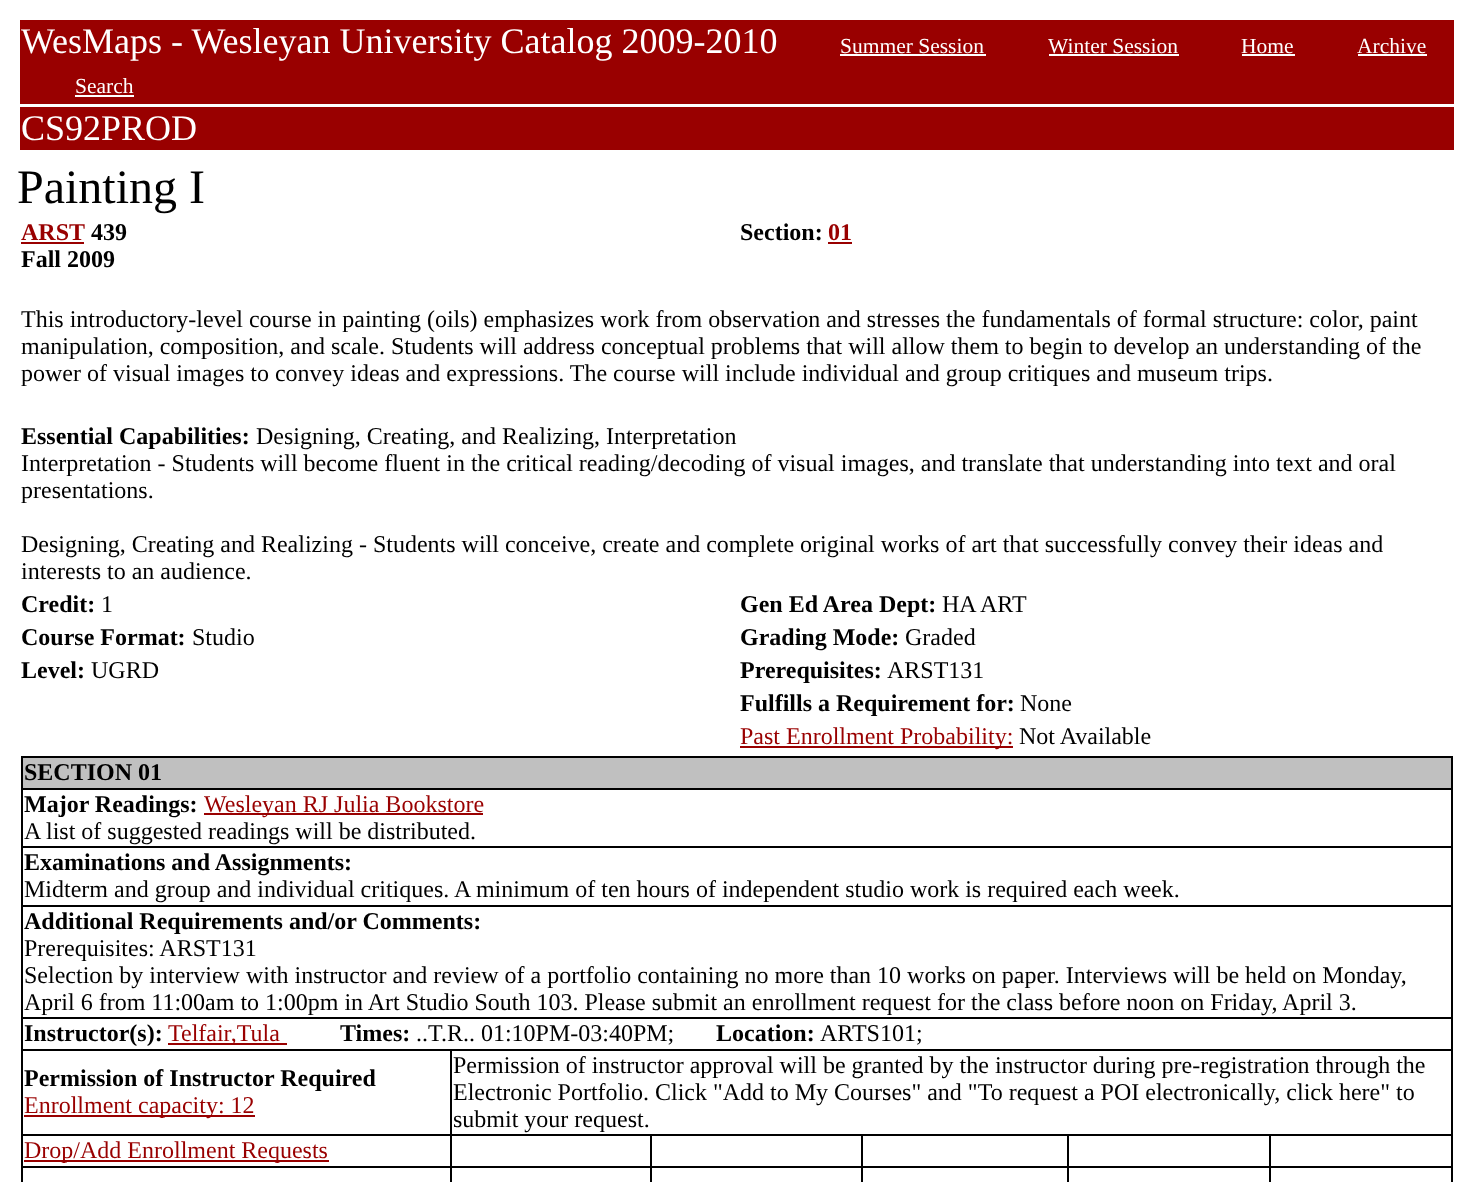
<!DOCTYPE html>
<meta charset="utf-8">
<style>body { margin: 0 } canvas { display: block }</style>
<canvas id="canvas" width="1473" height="1182"></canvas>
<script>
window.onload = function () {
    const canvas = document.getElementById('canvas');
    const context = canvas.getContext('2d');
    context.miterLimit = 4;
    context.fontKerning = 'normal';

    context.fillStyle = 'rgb(255, 255, 255)';
    context.fillRect(0, 0, 1473, 1182);
    context.fillStyle = 'rgb(153, 0, 0)';
    context.fillRect(20, 20, 1434, 84);
    context.fillStyle = 'rgb(255, 255, 255)';
    context.fillRect(840, 54, 146, 2);
    context.fillRect(1049, 54, 130, 2);
    context.fillRect(1242, 54, 53, 2);
    context.fillRect(1358, 54, 69, 2);
    context.fillRect(75, 95, 59, 2);
    context.fillStyle = 'rgb(153, 0, 0)';
    context.fillRect(20, 107, 1434, 43);
    context.fillRect(21, 242, 63, 2);
    context.fillRect(828, 242, 24, 2);
    context.fillRect(740, 746, 273, 2);
    context.fillStyle = 'rgb(0, 0, 0)';
    context.fillRect(21, 756, 1431, 2);
    context.fillRect(1451, 756, 2, 426);
    context.fillRect(21, 756, 2, 426);
    context.fillStyle = 'rgb(192, 192, 192)';
    context.fillRect(23, 758, 1428, 30);
    context.fillStyle = 'rgb(0, 0, 0)';
    context.fillRect(21, 788, 1431, 2);
    context.fillStyle = 'rgb(153, 0, 0)';
    context.fillRect(204, 813, 279, 2);
    context.fillStyle = 'rgb(0, 0, 0)';
    context.fillRect(21, 846, 1431, 2);
    context.fillRect(21, 905, 1431, 2);
    context.fillRect(21, 1017, 1431, 2);
    context.fillStyle = 'rgb(153, 0, 0)';
    context.fillRect(168, 1043, 119, 2);
    context.fillStyle = 'rgb(0, 0, 0)';
    context.fillRect(450, 1049, 1002, 2);
    context.fillRect(1269, 1134, 183, 2);
    context.fillRect(1269, 1166, 183, 2);
    context.fillRect(1269, 1166, 2, 16);
    context.fillRect(1067, 1166, 204, 2);
    context.fillRect(1269, 1134, 2, 33);
    context.fillRect(1067, 1134, 204, 2);
    context.fillRect(1067, 1166, 2, 16);
    context.fillRect(861, 1166, 207, 2);
    context.fillRect(1067, 1134, 2, 33);
    context.fillRect(861, 1134, 207, 2);
    context.fillRect(861, 1166, 2, 16);
    context.fillRect(650, 1166, 213, 2);
    context.fillRect(861, 1134, 2, 33);
    context.fillRect(650, 1134, 213, 2);
    context.fillRect(650, 1166, 2, 16);
    context.fillRect(450, 1166, 201, 2);
    context.fillRect(650, 1134, 2, 33);
    context.fillRect(450, 1134, 201, 2);
    context.fillRect(450, 1166, 2, 16);
    context.fillRect(21, 1166, 431, 2);
    context.fillRect(450, 1134, 2, 33);
    context.fillRect(21, 1134, 431, 2);
    context.fillRect(450, 1049, 2, 87);
    context.fillRect(21, 1049, 431, 2);
    context.fillStyle = 'rgb(153, 0, 0)';
    context.fillRect(24, 1115, 231, 2);
    context.fillRect(24, 1160, 305, 2);
    context.font = '36px Liberation Serif';
    context.fillStyle = 'rgb(255, 255, 255)';
    context.fillText('WesMaps - Wesleyan University Catalog 2009-2010', 21, 53);
    context.font = '21.5px Liberation Serif';
    context.fillText('Summer Session', 840, 53);
    context.fillText('Winter Session', 1048, 53);
    context.fillText('Home', 1241, 53);
    context.fillText('Archive', 1357, 53);
    context.fillText('Search', 75, 93);
    context.font = '36px Liberation Serif';
    context.fillText('CS92PROD', 21, 140);
    context.font = '48px Liberation Serif';
    context.fillStyle = 'rgb(0, 0, 0)';
    context.fillText('Painting I', 17, 203);
    context.font = 'bold 24px Liberation Serif';
    context.fillStyle = 'rgb(153, 0, 0)';
    context.fillText('ARST', 21, 240);
    context.fillStyle = 'rgb(0, 0, 0)';
    context.fillText('439', 91, 240);
    context.fillText('Fall 2009', 21, 267);
    context.fillText('Section:', 740, 240);
    context.fillStyle = 'rgb(153, 0, 0)';
    context.fillText('01', 828, 240);
    context.font = '24px Liberation Serif';
    context.fillStyle = 'rgb(0, 0, 0)';
    context.fillText('This introductory-level course in painting (oils) emphasizes work from observation and stresses the fundamentals of formal structure: color, paint', 21, 327);
    context.fillText('manipulation, composition, and scale. Students will address conceptual problems that will allow them to begin to develop an understanding of the', 21, 354);
    context.fillText('power of visual images to convey ideas and expressions. The course will include individual and group critiques and museum trips.', 21, 381);
    context.font = 'bold 24px Liberation Serif';
    context.fillText('Essential Capabilities:', 21, 444);
    context.font = '24px Liberation Serif';
    context.fillText('Designing, Creating, and Realizing, Interpretation', 256, 444);
    context.fillText('Interpretation - Students will become fluent in the critical reading/decoding of visual images, and translate that understanding into text and oral', 21, 471);
    context.fillText('presentations.', 21, 498);
    context.fillText('Designing, Creating and Realizing - Students will conceive, create and complete original works of art that successfully convey their ideas and', 21, 552);
    context.fillText('interests to an audience.', 21, 579);
    context.font = 'bold 24px Liberation Serif';
    context.fillText('Credit:', 21, 612);
    context.font = '24px Liberation Serif';
    context.fillText('1', 101, 612);
    context.font = 'bold 24px Liberation Serif';
    context.fillText('Gen Ed Area Dept:', 740, 612);
    context.font = '24px Liberation Serif';
    context.fillText('HA ART', 942, 612);
    context.font = 'bold 24px Liberation Serif';
    context.fillText('Course Format:', 21, 645);
    context.font = '24px Liberation Serif';
    context.fillText('Studio', 192, 645);
    context.font = 'bold 24px Liberation Serif';
    context.fillText('Grading Mode:', 740, 645);
    context.font = '24px Liberation Serif';
    context.fillText('Graded', 905, 645);
    context.font = 'bold 24px Liberation Serif';
    context.fillText('Level:', 21, 678);
    context.font = '24px Liberation Serif';
    context.fillText('UGRD', 91, 678);
    context.font = 'bold 24px Liberation Serif';
    context.fillText('Prerequisites:', 740, 678);
    context.font = '24px Liberation Serif';
    context.fillText('ARST131', 887, 678);
    context.font = 'bold 24px Liberation Serif';
    context.fillText('Fulfills a Requirement for:', 740, 711);
    context.font = '24px Liberation Serif';
    context.fillText('None', 1020, 711);
    context.fillStyle = 'rgb(153, 0, 0)';
    context.fillText('Past Enrollment Probability:', 740, 744);
    context.fillStyle = 'rgb(0, 0, 0)';
    context.fillText('Not Available', 1019, 744);
    context.font = 'bold 24px Liberation Serif';
    context.fillText('SECTION 01', 24, 780);
    context.fillText('Major Readings:', 24, 812);
    context.font = '24px Liberation Serif';
    context.fillStyle = 'rgb(153, 0, 0)';
    context.fillText('Wesleyan RJ Julia Bookstore', 204, 812);
    context.fillStyle = 'rgb(0, 0, 0)';
    context.fillText('A list of suggested readings will be distributed.', 24, 839);
    context.font = 'bold 24px Liberation Serif';
    context.fillText('Examinations and Assignments:', 24, 870);
    context.font = '24px Liberation Serif';
    context.fillText('Midterm and group and individual critiques. A minimum of ten hours of independent studio work is required each week.', 24, 897);
    context.font = 'bold 24px Liberation Serif';
    context.fillText('Additional Requirements and/or Comments:', 24, 929);
    context.font = '24px Liberation Serif';
    context.fillText('Prerequisites: ARST131', 24, 956);
    context.fillText('Selection by interview with instructor and review of a portfolio containing no more than 10 works on paper. Interviews will be held on Monday,', 24, 983);
    context.fillText('April 6 from 11:00am to 1:00pm in Art Studio South 103. Please submit an enrollment request for the class before noon on Friday, April 3.', 24, 1010);
    context.font = 'bold 24px Liberation Serif';
    context.fillText('Instructor(s):', 24, 1041);
    context.font = '24px Liberation Serif';
    context.fillStyle = 'rgb(153, 0, 0)';
    context.fillText('Telfair,Tula', 168, 1041);
    context.font = 'bold 24px Liberation Serif';
    context.fillStyle = 'rgb(0, 0, 0)';
    context.fillText('Times:', 340, 1041);
    context.font = '24px Liberation Serif';
    context.fillText('..T.R.. 01:10PM-03:40PM;', 416, 1041);
    context.font = 'bold 24px Liberation Serif';
    context.fillText('Location:', 716, 1041);
    context.font = '24px Liberation Serif';
    context.fillText('ARTS101;', 820, 1041);
    context.font = 'bold 24px Liberation Serif';
    context.fillText('Permission of Instructor Required', 24, 1086);
    context.font = '24px Liberation Serif';
    context.fillStyle = 'rgb(153, 0, 0)';
    context.fillText('Enrollment capacity: 12', 24, 1113);
    context.fillStyle = 'rgb(0, 0, 0)';
    context.fillText('Permission of instructor approval will be granted by the instructor during pre-registration through the', 453, 1073);
    context.fillText('Electronic Portfolio. Click "Add to My Courses" and "To request a POI electronically, click here" to', 453, 1100);
    context.fillText('submit your request.', 453, 1127);
    context.fillStyle = 'rgb(153, 0, 0)';
    context.fillText('Drop/Add Enrollment Requests', 24, 1158);
};
</script>
